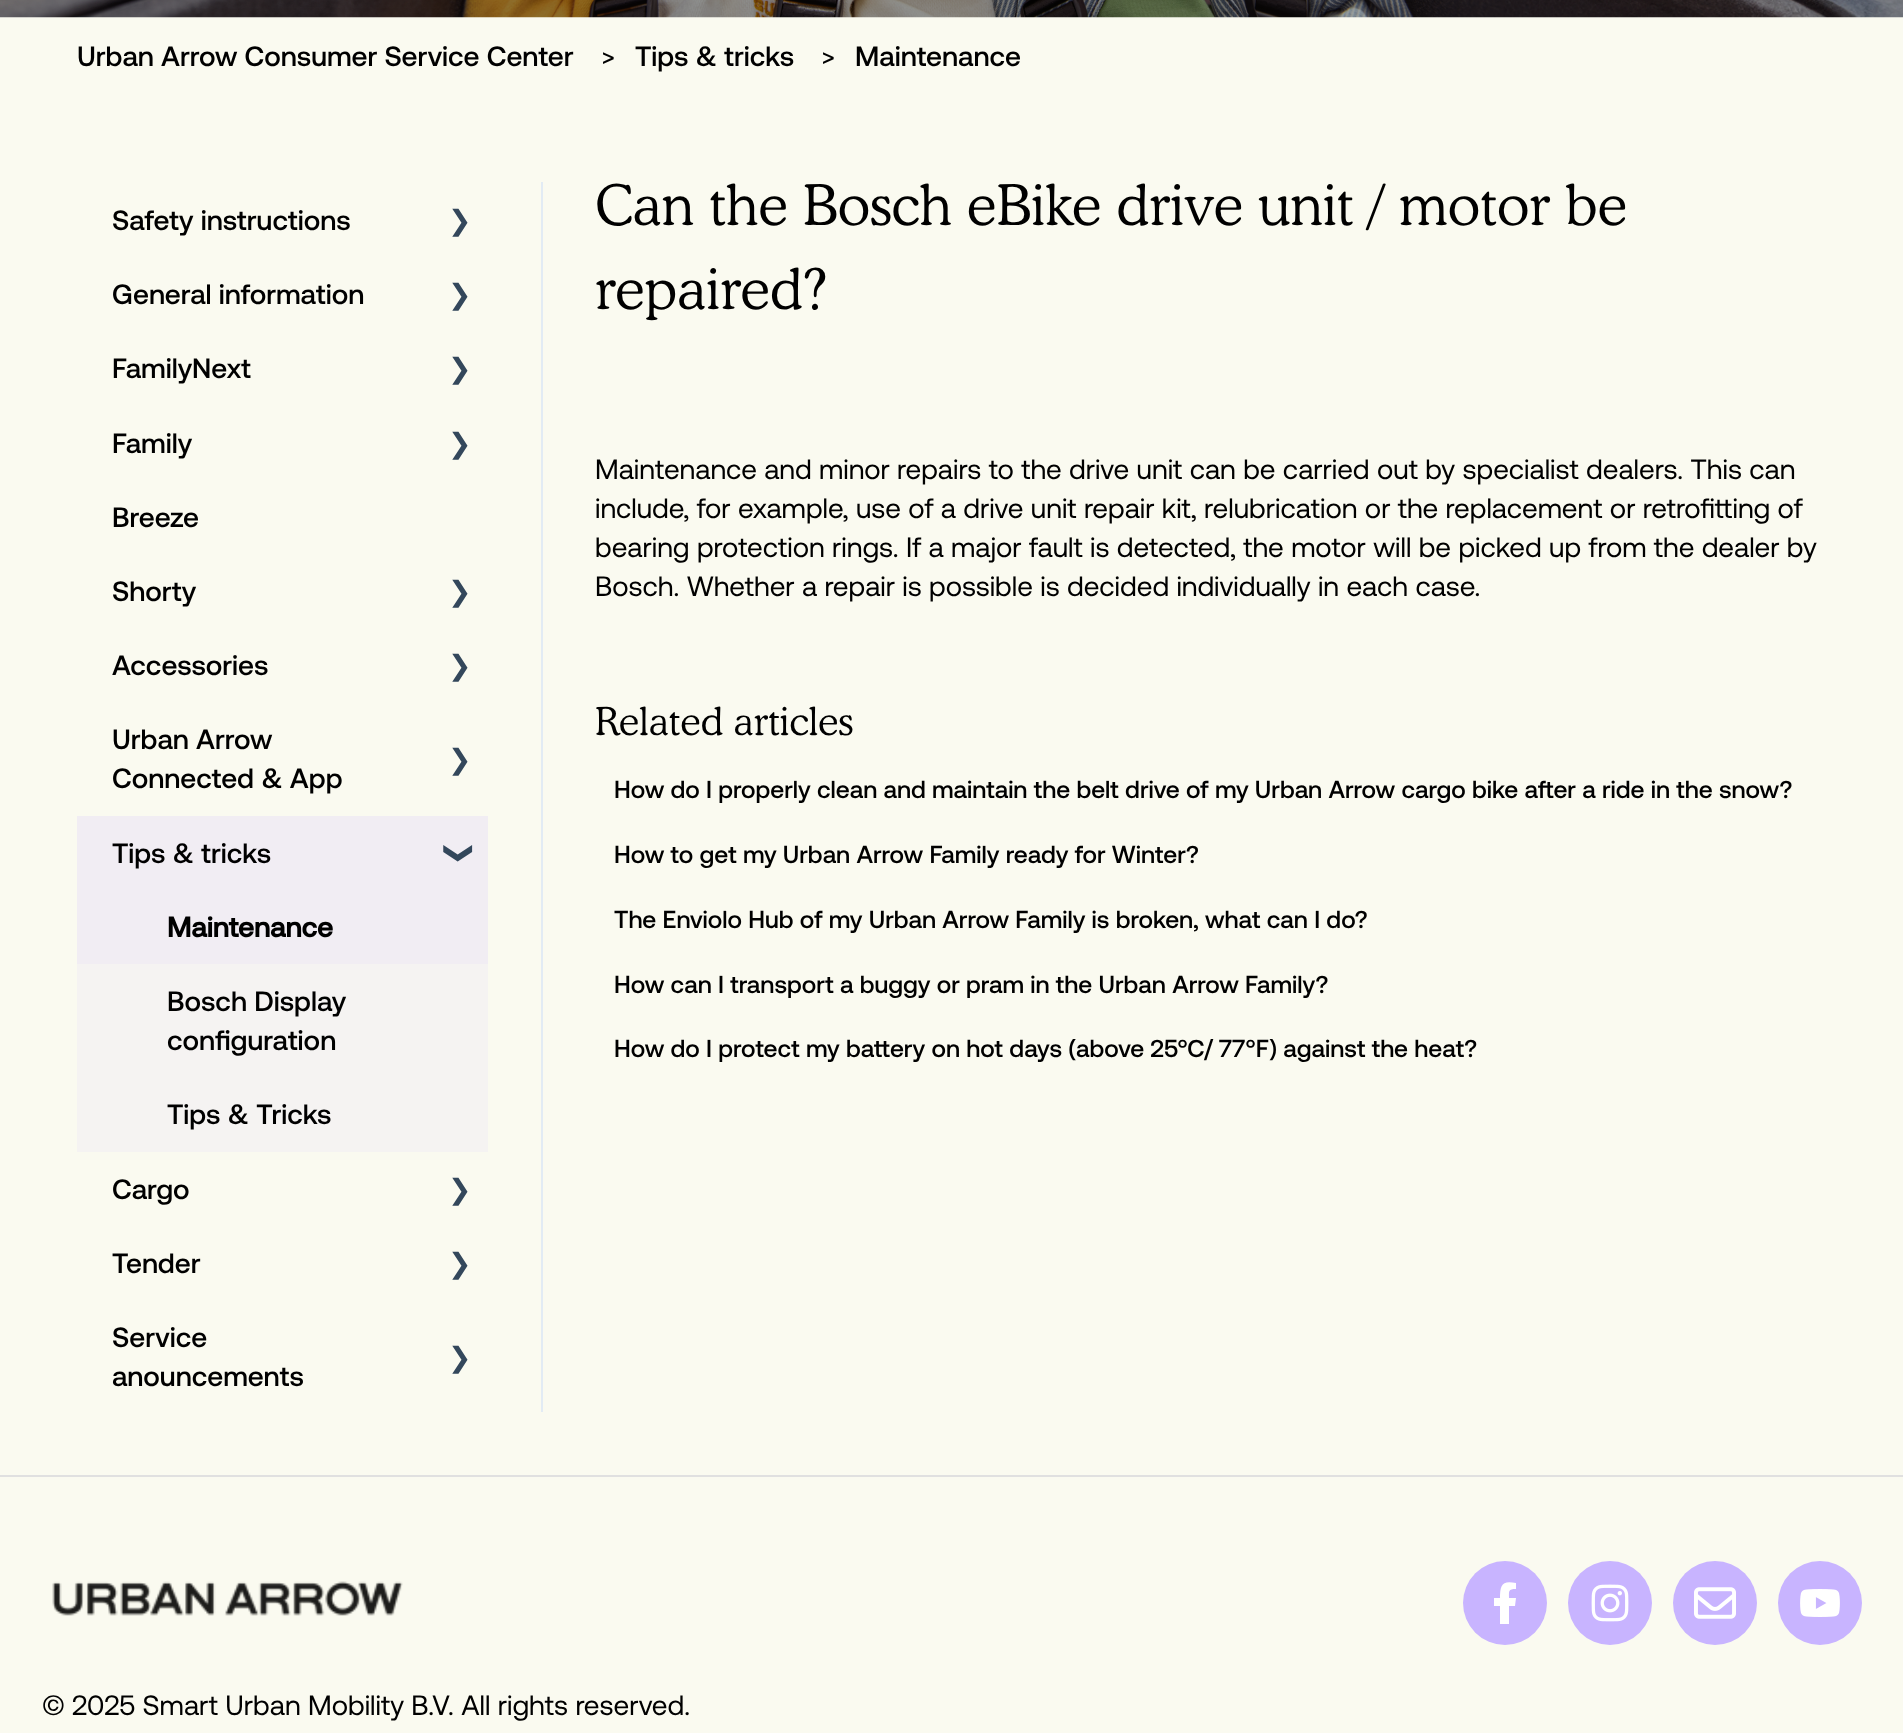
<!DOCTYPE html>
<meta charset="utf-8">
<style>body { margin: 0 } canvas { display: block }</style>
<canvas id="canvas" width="1903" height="1733"></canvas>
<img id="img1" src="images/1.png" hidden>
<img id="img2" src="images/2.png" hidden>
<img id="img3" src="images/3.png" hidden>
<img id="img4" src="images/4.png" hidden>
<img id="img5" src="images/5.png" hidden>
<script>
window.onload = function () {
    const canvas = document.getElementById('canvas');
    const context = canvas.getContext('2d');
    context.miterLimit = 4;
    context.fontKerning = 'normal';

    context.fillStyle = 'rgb(250, 250, 240)';
    context.fillRect(0, 0, 1903, 1733);
    context.drawImage(document.getElementById('img1'), 0, 0, 1903, 18);
    context.fillStyle = 'rgb(226, 235, 244)';
    context.fillRect(541, 182, 2, 1230);
    context.fillStyle = 'rgb(245, 243, 242)';
    context.fillRect(77, 964, 411, 188);
    context.fillStyle = 'rgb(241, 237, 243)';
    context.fillRect(77, 816, 411, 148);
    context.fillStyle = 'rgb(224, 224, 224)';
    context.fillRect(0, 1475, 1903, 2);
    context.fillStyle = 'rgb(200, 180, 255)';
    context.beginPath();
    context.arc(1505, 1603, 42, 0, 2 * Math.PI);
    context.fill();
    context.fillStyle = 'rgb(255, 255, 255)';
    context.beginPath();
    context.moveTo(1515, 1606);
    context.lineTo(1516, 1598);
    context.lineTo(1509, 1598);
    context.bezierCurveTo(1509, 1591, 1508, 1589, 1516, 1589);
    context.lineTo(1516, 1583);
    context.bezierCurveTo(1502, 1580, 1500, 1585, 1500, 1598);
    context.lineTo(1494, 1598);
    context.lineTo(1494, 1606);
    context.lineTo(1500, 1606);
    context.lineTo(1500, 1624);
    context.lineTo(1509, 1624);
    context.lineTo(1509, 1606);
    context.closePath();
    context.fill();
    context.fillStyle = 'rgb(200, 180, 255)';
    context.beginPath();
    context.arc(1610, 1603, 42, 0, 2 * Math.PI);
    context.fill();
    context.drawImage(document.getElementById('img2'), 1591, 1584, 38, 38);
    context.beginPath();
    context.arc(1715, 1603, 42, 0, 2 * Math.PI);
    context.fill();
    context.drawImage(document.getElementById('img3'), 1694, 1587, 42, 32);
    context.beginPath();
    context.arc(1820, 1603, 42, 0, 2 * Math.PI);
    context.fill();
    context.drawImage(document.getElementById('img4'), 1800, 1589, 40, 28);
    context.drawImage(document.getElementById('img5'), 52, 1581, 351, 35);
    context.font = '500 28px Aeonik';
    context.fillStyle = 'rgb(0, 0, 0)';
    context.fillText('Urban Arrow Consumer Service Center', 77, 66);
    context.font = '28px Aeonik';
    context.fillText('>', 601, 66);
    context.font = '500 28px Aeonik';
    context.fillText('Tips & tricks', 635, 66);
    context.font = '28px Aeonik';
    context.fillText('>', 821, 66);
    context.font = '500 28px Aeonik';
    context.fillText('Maintenance', 855, 66);
    context.fillText('Safety instructions', 112, 230);
    context.font = '28px DejaVu Sans';
    context.fillStyle = 'rgb(51, 71, 91)';
    context.fillText('❯', 448, 230);
    context.font = '500 28px Aeonik';
    context.fillStyle = 'rgb(0, 0, 0)';
    context.fillText('General information', 112, 304);
    context.font = '28px DejaVu Sans';
    context.fillStyle = 'rgb(51, 71, 91)';
    context.fillText('❯', 448, 304);
    context.font = '500 28px Aeonik';
    context.fillStyle = 'rgb(0, 0, 0)';
    context.fillText('FamilyNext', 112, 378);
    context.font = '28px DejaVu Sans';
    context.fillStyle = 'rgb(51, 71, 91)';
    context.fillText('❯', 448, 378);
    context.font = '500 28px Aeonik';
    context.fillStyle = 'rgb(0, 0, 0)';
    context.fillText('Family', 112, 453);
    context.font = '28px DejaVu Sans';
    context.fillStyle = 'rgb(51, 71, 91)';
    context.fillText('❯', 448, 453);
    context.font = '500 28px Aeonik';
    context.fillStyle = 'rgb(0, 0, 0)';
    context.fillText('Breeze', 112, 527);
    context.fillText('Shorty', 112, 601);
    context.font = '28px DejaVu Sans';
    context.fillStyle = 'rgb(51, 71, 91)';
    context.fillText('❯', 448, 601);
    context.font = '500 28px Aeonik';
    context.fillStyle = 'rgb(0, 0, 0)';
    context.fillText('Accessories', 112, 675);
    context.font = '28px DejaVu Sans';
    context.fillStyle = 'rgb(51, 71, 91)';
    context.fillText('❯', 448, 675);
    context.font = '500 28px Aeonik';
    context.fillStyle = 'rgb(0, 0, 0)';
    context.fillText('Urban Arrow', 112, 749);
    context.fillText('Connected & App', 112, 788);
    context.font = '28px DejaVu Sans';
    context.fillStyle = 'rgb(51, 71, 91)';
    context.fillText('❯', 448, 769);
    context.font = '500 28px Aeonik';
    context.fillStyle = 'rgb(0, 0, 0)';
    context.fillText('Tips & tricks', 112, 863);
    context.font = 'bold 28px DejaVu Sans';
    context.fillStyle = 'rgb(51, 71, 91)';
    context.save();
    context.translate(450, 841);
    context.rotate(90 * Math.PI / 180);
    context.fillText('❯', 0, 0);
    context.restore();
    context.font = 'bold 28px Aeonik';
    context.fillStyle = 'rgb(0, 0, 0)';
    context.fillText('Maintenance', 167, 937);
    context.font = '500 28px Aeonik';
    context.fillText('Bosch Display', 167, 1011);
    context.fillText('configuration', 167, 1050);
    context.fillText('Tips & Tricks', 167, 1124);
    context.fillText('Cargo', 112, 1199);
    context.font = '28px DejaVu Sans';
    context.fillStyle = 'rgb(51, 71, 91)';
    context.fillText('❯', 448, 1199);
    context.font = '500 28px Aeonik';
    context.fillStyle = 'rgb(0, 0, 0)';
    context.fillText('Tender', 112, 1273);
    context.font = '28px DejaVu Sans';
    context.fillStyle = 'rgb(51, 71, 91)';
    context.fillText('❯', 448, 1273);
    context.font = '500 28px Aeonik';
    context.fillStyle = 'rgb(0, 0, 0)';
    context.fillText('Service', 112, 1347);
    context.fillText('anouncements', 112, 1386);
    context.font = '28px DejaVu Sans';
    context.fillStyle = 'rgb(51, 71, 91)';
    context.fillText('❯', 448, 1367);
    context.font = '300 56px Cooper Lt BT';
    context.fillStyle = 'rgb(0, 0, 0)';
    context.fillText('Can the Bosch eBike drive unit / motor be', 595, 225);
    context.fillText('repaired?', 595, 309);
    context.font = '28px Aeonik';
    context.fillText('Maintenance and minor repairs to the drive unit can be carried out by specialist dealers. This can', 595, 479);
    context.fillText('include, for example, use of a drive unit repair kit, relubrication or the replacement or retrofitting of', 595, 518);
    context.fillText('bearing protection rings. If a major fault is detected, the motor will be picked up from the dealer by', 595, 557);
    context.fillText('Bosch. Whether a repair is possible is decided individually in each case.', 595, 596);
    context.font = '300 38.5px Cooper Lt BT';
    context.fillText('Related articles', 595, 735);
    context.font = '500 24.5px Aeonik';
    context.fillText('How do I properly clean and maintain the belt drive of my Urban Arrow cargo bike after a ride in the snow?', 614, 798);
    context.fillText('How to get my Urban Arrow Family ready for Winter?', 614, 863);
    context.fillText('The Enviolo Hub of my Urban Arrow Family is broken, what can I do?', 614, 928);
    context.fillText('How can I transport a buggy or pram in the Urban Arrow Family?', 614, 993);
    context.fillText('How do I protect my battery on hot days (above 25°C/ 77°F) against the heat?', 614, 1057);
    context.font = '28px Aeonik';
    context.fillText('© 2025 Smart Urban Mobility B.V. All rights reserved.', 42, 1715);
};
</script>
